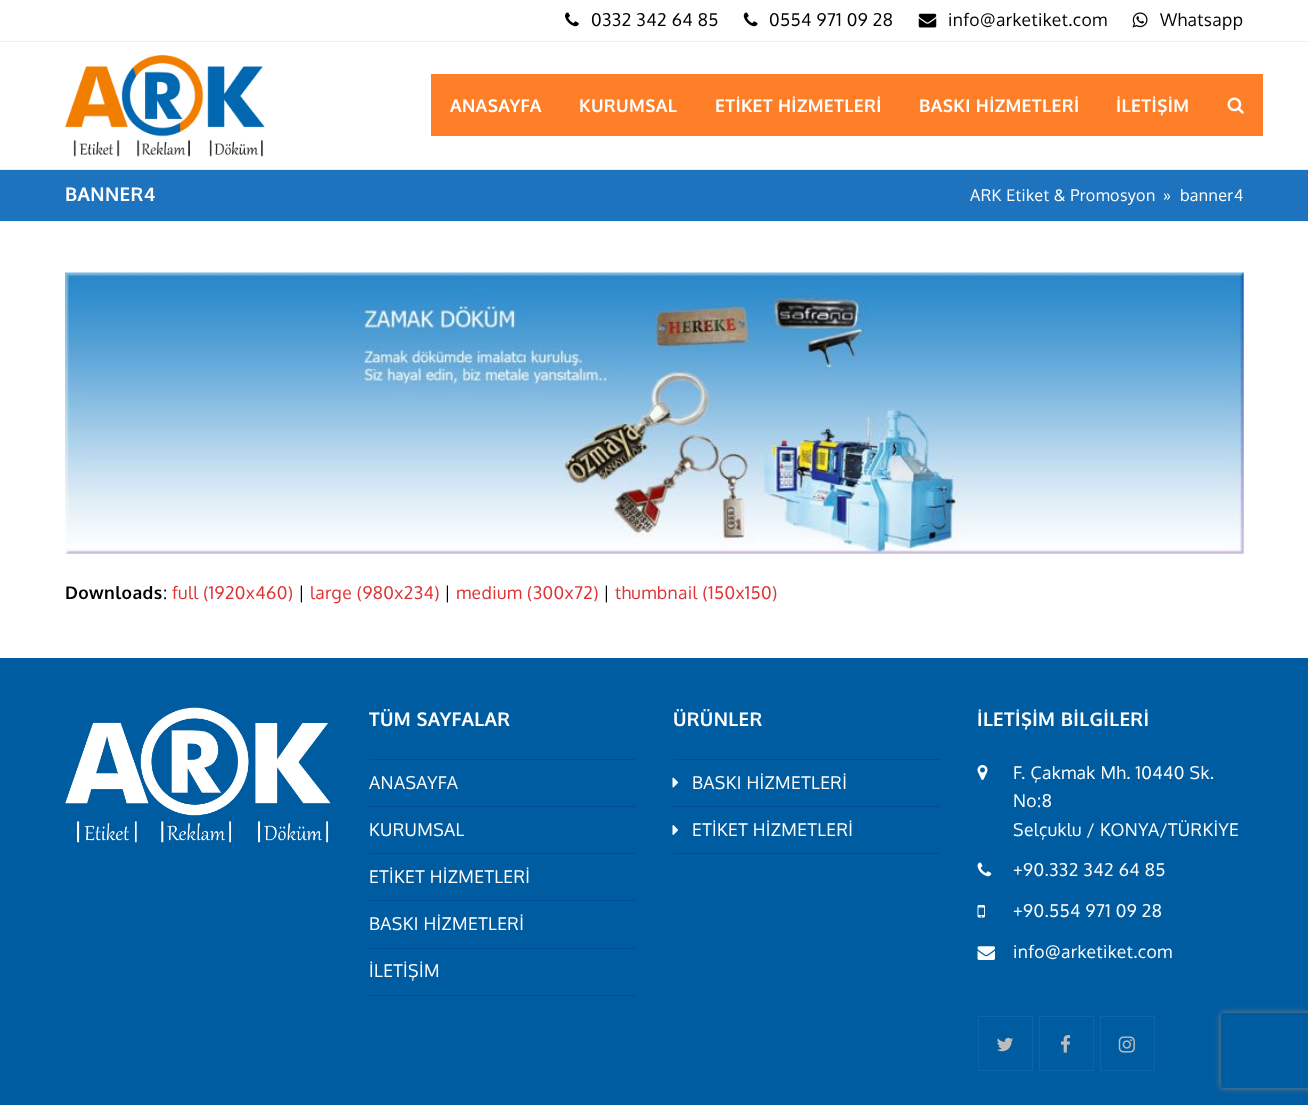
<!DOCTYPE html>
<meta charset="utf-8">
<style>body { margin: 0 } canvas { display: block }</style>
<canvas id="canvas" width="1308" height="1105"></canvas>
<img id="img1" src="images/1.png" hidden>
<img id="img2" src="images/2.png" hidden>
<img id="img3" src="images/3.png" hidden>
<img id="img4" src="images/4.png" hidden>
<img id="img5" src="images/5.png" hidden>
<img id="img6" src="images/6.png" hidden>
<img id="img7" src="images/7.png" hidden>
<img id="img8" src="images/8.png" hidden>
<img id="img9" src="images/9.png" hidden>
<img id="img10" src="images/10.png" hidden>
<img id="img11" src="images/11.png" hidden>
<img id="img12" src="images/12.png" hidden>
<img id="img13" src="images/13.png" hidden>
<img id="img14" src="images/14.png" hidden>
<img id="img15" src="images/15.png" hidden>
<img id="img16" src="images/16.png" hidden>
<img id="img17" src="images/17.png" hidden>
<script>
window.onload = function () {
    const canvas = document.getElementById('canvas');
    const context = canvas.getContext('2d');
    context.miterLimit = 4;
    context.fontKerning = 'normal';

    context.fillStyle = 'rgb(255, 255, 255)';
    context.fillRect(0, 0, 1308, 1105);
    context.fillStyle = 'rgb(238, 238, 238)';
    context.fillRect(0, 41, 1308, 1);
    context.drawImage(document.getElementById('img1'), 565, 12, 14, 15);
    context.drawImage(document.getElementById('img2'), 743, 12, 15, 15);
    context.drawImage(document.getElementById('img3'), 918, 13, 19, 15);
    context.drawImage(document.getElementById('img4'), 1132, 12, 16, 16);
    context.drawImage(document.getElementById('img5'), 65, 55, 200, 102);
    context.fillStyle = 'rgb(255, 126, 40)';
    context.fillRect(431, 74, 832, 62);
    context.drawImage(document.getElementById('img6'), 1227, 97, 17, 17);
    context.fillStyle = 'rgb(30, 115, 190)';
    context.fillRect(0, 170, 1308, 51);
    context.fillStyle = 'rgb(238, 238, 238)';
    context.fillRect(0, 169, 1308, 1);
    context.fillRect(0, 221, 1308, 1);
    context.drawImage(document.getElementById('img7'), 65, 272, 1179, 282);
    context.fillStyle = 'rgb(0, 92, 161)';
    context.fillRect(0, 658, 1308, 447);
    context.drawImage(document.getElementById('img8'), 65, 707, 266, 136);
    context.fillStyle = 'rgb(0, 73, 158)';
    context.fillRect(369, 759, 266, 1);
    context.fillRect(369, 806, 266, 1);
    context.fillRect(369, 853, 266, 1);
    context.fillRect(369, 900, 266, 1);
    context.fillRect(369, 948, 266, 1);
    context.fillRect(369, 995, 266, 1);
    context.fillRect(673, 759, 267, 1);
    context.fillRect(673, 806, 267, 1);
    context.drawImage(document.getElementById('img9'), 672, 777, 7, 11);
    context.fillRect(673, 853, 267, 1);
    context.drawImage(document.getElementById('img10'), 672, 825, 6, 10);
    context.drawImage(document.getElementById('img11'), 977, 765, 11, 15);
    context.drawImage(document.getElementById('img12'), 977, 862, 15, 15);
    context.drawImage(document.getElementById('img13'), 977, 905, 8, 13);
    context.drawImage(document.getElementById('img14'), 977, 946, 18, 14);
    context.strokeStyle = 'rgb(15, 102, 167)';
    context.strokeRect(978.5, 1016.5, 54, 54);
    context.drawImage(document.getElementById('img15'), 997, 1037, 17, 15);
    context.strokeRect(1039.5, 1016.5, 54, 54);
    context.drawImage(document.getElementById('img16'), 1061, 1035, 10, 18);
    context.strokeRect(1100.5, 1016.5, 54, 54);
    context.drawImage(document.getElementById('img17'), 1118, 1036, 17, 17);
    context.save();
    context.beginPath();
    context.moveTo(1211, 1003);
    context.lineTo(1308, 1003);
    context.lineTo(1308, 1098);
    context.lineTo(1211, 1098);
    context.closePath();
    context.moveTo(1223.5, 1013);
    context.lineTo(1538.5, 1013);
    context.bezierCurveTo(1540, 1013, 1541, 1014, 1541, 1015.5);
    context.lineTo(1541, 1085.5);
    context.bezierCurveTo(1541, 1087, 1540, 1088, 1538.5, 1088);
    context.lineTo(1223.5, 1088);
    context.bezierCurveTo(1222, 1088, 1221, 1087, 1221, 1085.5);
    context.lineTo(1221, 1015.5);
    context.bezierCurveTo(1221, 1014, 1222, 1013, 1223.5, 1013);
    context.closePath();
    context.clip('evenodd');
    context.fillStyle = 'rgb(128, 128, 128)';
    context.filter = 'blur(3px)';
    context.beginPath();
    context.roundRect(1221, 1013, 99, 75, 2.5);
    context.fill();
    context.filter = 'none';
    context.restore();
    context.letterSpacing = '0.4px';
    context.font = '17.5px Oxygen';
    context.fillStyle = 'rgb(0, 0, 0)';
    context.fillText('0332 342 64 85', 591, 26);
    context.fillText('0554 971 09 28', 769, 26);
    context.fillText('info@arketiket.com', 948, 26);
    context.fillText('Whatsapp', 1160, 26);
    context.font = 'bold 17.5px Oxygen';
    context.fillStyle = 'rgb(255, 255, 255)';
    context.fillText('ANASAYFA', 450, 112);
    context.fillText('KURUMSAL', 579, 112);
    context.fillText('ETİKET HİZMETLERİ', 715, 112);
    context.fillText('BASKI HİZMETLERİ', 919, 112);
    context.fillText('İLETİŞİM', 1116, 112);
    context.font = 'bold 18.75px Oxygen';
    context.fillText('BANNER4', 65, 201);
    context.font = '16.1px Oxygen';
    context.fillText('ARK Etiket & Promosyon', 970, 201);
    context.fillText('»', 1163, 201);
    context.fillText('banner4', 1180, 201);
    context.font = 'bold 17.5px Oxygen';
    context.fillStyle = 'rgb(0, 0, 0)';
    context.fillText('Downloads', 65, 599);
    context.font = '17.5px Oxygen';
    context.fillText(':', 163, 599);
    context.fillStyle = 'rgb(221, 51, 51)';
    context.fillText('full (1920x460)', 172, 599);
    context.fillStyle = 'rgb(0, 0, 0)';
    context.fillText('|', 298, 599);
    context.fillStyle = 'rgb(221, 51, 51)';
    context.fillText('large (980x234)', 310, 599);
    context.fillStyle = 'rgb(0, 0, 0)';
    context.fillText('|', 444, 599);
    context.fillStyle = 'rgb(221, 51, 51)';
    context.fillText('medium (300x72)', 456, 599);
    context.fillStyle = 'rgb(0, 0, 0)';
    context.fillText('|', 603, 599);
    context.fillStyle = 'rgb(221, 51, 51)';
    context.fillText('thumbnail (150x150)', 615, 599);
    context.font = 'bold 18.75px Oxygen';
    context.fillStyle = 'rgb(255, 255, 255)';
    context.fillText('TÜM SAYFALAR', 369, 726);
    context.font = '17.5px Oxygen';
    context.fillText('ANASAYFA', 369, 789);
    context.fillText('KURUMSAL', 369, 836);
    context.fillText('ETİKET HİZMETLERİ', 369, 883);
    context.fillText('BASKI HİZMETLERİ', 369, 930);
    context.fillText('İLETİŞİM', 369, 977);
    context.font = 'bold 18.75px Oxygen';
    context.fillText('ÜRÜNLER', 673, 726);
    context.font = '17.5px Oxygen';
    context.fillText('BASKI HİZMETLERİ', 692, 789);
    context.fillText('ETİKET HİZMETLERİ', 692, 836);
    context.font = 'bold 18.75px Oxygen';
    context.fillText('İLETİŞİM BİLGİLERİ', 977, 726);
    context.font = '17.5px Oxygen';
    context.fillText('F. Çakmak Mh. 10440 Sk.', 1013, 779);
    context.fillText('No:8', 1013, 807);
    context.fillText('Selçuklu / KONYA/TÜRKİYE', 1013, 836);
    context.fillText('+90.332 342 64 85', 1013, 876);
    context.fillText('+90.554 971 09 28', 1013, 917);
    context.fillText('info@arketiket.com', 1013, 958);
};
</script>
